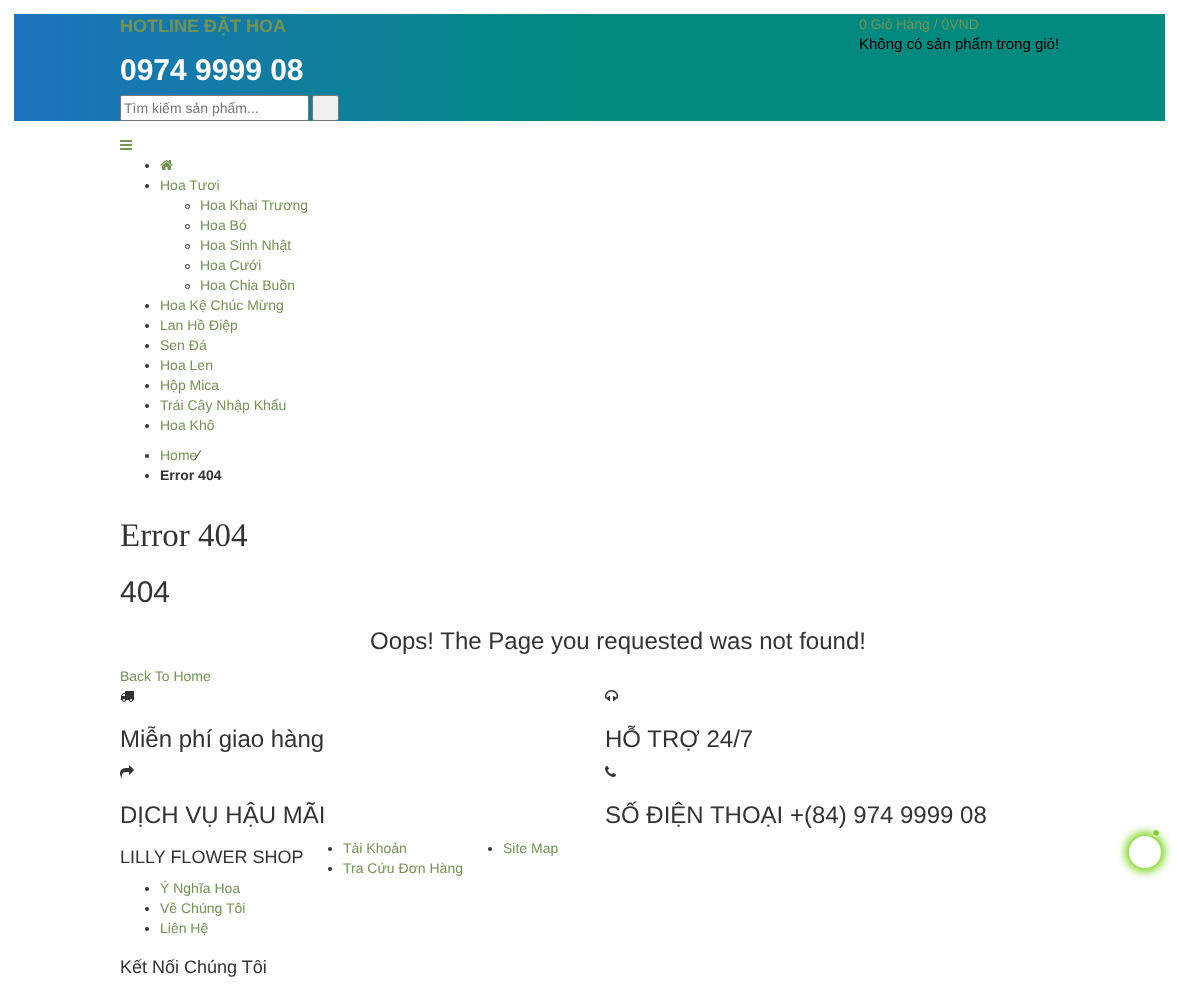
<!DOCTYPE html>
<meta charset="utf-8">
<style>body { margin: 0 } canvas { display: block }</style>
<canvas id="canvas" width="1179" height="985"></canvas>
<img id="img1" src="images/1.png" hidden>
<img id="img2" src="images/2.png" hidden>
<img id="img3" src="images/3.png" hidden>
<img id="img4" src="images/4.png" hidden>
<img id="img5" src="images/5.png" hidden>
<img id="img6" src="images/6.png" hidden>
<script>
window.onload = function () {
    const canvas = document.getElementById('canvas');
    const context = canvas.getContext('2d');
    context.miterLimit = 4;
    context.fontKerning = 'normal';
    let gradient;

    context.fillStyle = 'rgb(255, 255, 255)';
    context.fillRect(0, 0, 1179, 985);
    gradient = context.createLinearGradient(14, 68, 1165, 67);
    gradient.addColorStop(0, 'rgb(30, 115, 190)');
    gradient.addColorStop(0.5, 'rgb(0, 137, 126)');
    context.fillStyle = gradient;
    context.fillRect(14, 14, 1151, 107);
    context.fillStyle = 'rgb(255, 255, 255)';
    context.beginPath();
    context.roundRect(120.5, 95.5, 188, 25, 1.5);
    context.fill();
    context.strokeStyle = 'rgb(118, 118, 118)';
    context.stroke();
    context.fillStyle = 'rgb(239, 239, 239)';
    context.beginPath();
    context.roundRect(312.5, 95.5, 26, 25, 1.5);
    context.fill();
    context.stroke();
    context.drawImage(document.getElementById('img1'), 120, 140, 12, 10);
    context.fillStyle = 'rgb(51, 51, 51)';
    context.beginPath();
    context.arc(147, 166, 2, 0, 2 * Math.PI);
    context.fill();
    context.drawImage(document.getElementById('img2'), 160, 160, 13, 10);
    context.beginPath();
    context.arc(147, 186, 2, 0, 2 * Math.PI);
    context.fill();
    context.beginPath();
    context.arc(187.5, 206.5, 2, 0, 2 * Math.PI);
    context.strokeStyle = 'rgb(51, 51, 51)';
    context.stroke();
    context.beginPath();
    context.arc(187.5, 226.5, 2, 0, 2 * Math.PI);
    context.stroke();
    context.beginPath();
    context.arc(187.5, 246.5, 2, 0, 2 * Math.PI);
    context.stroke();
    context.beginPath();
    context.arc(187.5, 266.5, 2, 0, 2 * Math.PI);
    context.stroke();
    context.beginPath();
    context.arc(187.5, 286.5, 2, 0, 2 * Math.PI);
    context.stroke();
    context.beginPath();
    context.arc(147, 306, 2, 0, 2 * Math.PI);
    context.fill();
    context.beginPath();
    context.arc(147, 326, 2, 0, 2 * Math.PI);
    context.fill();
    context.beginPath();
    context.arc(147, 346, 2, 0, 2 * Math.PI);
    context.fill();
    context.beginPath();
    context.arc(147, 366, 2, 0, 2 * Math.PI);
    context.fill();
    context.beginPath();
    context.arc(147, 386, 2, 0, 2 * Math.PI);
    context.fill();
    context.beginPath();
    context.arc(147, 406, 2, 0, 2 * Math.PI);
    context.fill();
    context.beginPath();
    context.arc(147, 426, 2, 0, 2 * Math.PI);
    context.fill();
    context.beginPath();
    context.arc(147, 456, 2, 0, 2 * Math.PI);
    context.fill();
    context.beginPath();
    context.arc(147, 476, 2, 0, 2 * Math.PI);
    context.fill();
    context.drawImage(document.getElementById('img3'), 120, 691, 14, 11);
    context.drawImage(document.getElementById('img4'), 605, 690, 13, 11);
    context.drawImage(document.getElementById('img5'), 120, 765, 14, 13);
    context.drawImage(document.getElementById('img6'), 605, 766, 11, 11);
    context.beginPath();
    context.arc(147, 889, 2, 0, 2 * Math.PI);
    context.fill();
    context.beginPath();
    context.arc(147, 909, 2, 0, 2 * Math.PI);
    context.fill();
    context.beginPath();
    context.arc(147, 929, 2, 0, 2 * Math.PI);
    context.fill();
    context.beginPath();
    context.arc(330, 849, 2, 0, 2 * Math.PI);
    context.fill();
    context.beginPath();
    context.arc(330, 869, 2, 0, 2 * Math.PI);
    context.fill();
    context.beginPath();
    context.arc(490, 849, 2, 0, 2 * Math.PI);
    context.fill();
    context.save();
    context.beginPath();
    context.moveTo(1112, 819);
    context.lineTo(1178, 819);
    context.lineTo(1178, 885);
    context.lineTo(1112, 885);
    context.closePath();
    context.moveTo(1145, 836);
    context.bezierCurveTo(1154, 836, 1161, 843, 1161, 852);
    context.bezierCurveTo(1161, 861, 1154, 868, 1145, 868);
    context.bezierCurveTo(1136, 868, 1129, 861, 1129, 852);
    context.bezierCurveTo(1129, 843, 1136, 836, 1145, 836);
    context.closePath();
    context.clip('evenodd');
    context.fillStyle = 'rgb(126, 211, 33)';
    context.filter = 'blur(4px)';
    context.beginPath();
    context.roundRect(1125, 832, 40, 40, 20);
    context.fill();
    context.filter = 'none';
    context.restore();
    context.fillStyle = 'rgb(126, 211, 33)';
    context.beginPath();
    context.arc(1156, 833, 3.5, 0, 2 * Math.PI);
    context.fill();
    context.strokeStyle = 'rgb(255, 255, 255)';
    context.stroke();
    context.font = 'bold 18px Liberation Sans';
    context.fillStyle = 'rgb(115, 147, 84)';
    context.fillText('HOTLINE ĐẶT HOA', 120, 32);
    context.font = 'bold 30px Liberation Sans';
    context.fillStyle = 'rgb(255, 255, 255)';
    context.fillText('0974 9999 08', 120, 80);
    context.font = '14px Liberation Sans';
    context.fillStyle = 'rgb(117, 117, 117)';
    context.fillText('Tìm kiếm sản phẩm...', 124, 113);
    context.fillStyle = 'rgb(115, 147, 84)';
    context.fillText('0 Giỏ Hàng / 0VND', 859, 29);
    context.font = '15px Liberation Sans';
    context.fillStyle = 'rgb(0, 0, 0)';
    context.fillText('Không có sản phẩm trong giỏ!', 859, 49);
    context.font = '14px Liberation Sans';
    context.fillStyle = 'rgb(115, 147, 84)';
    context.fillText('Hoa Tươi', 160, 190);
    context.fillText('Hoa Khai Trương', 200, 210);
    context.fillText('Hoa Bó', 200, 230);
    context.fillText('Hoa Sinh Nhật', 200, 250);
    context.fillText('Hoa Cưới', 200, 270);
    context.fillText('Hoa Chia Buồn', 200, 290);
    context.fillText('Hoa Kệ Chúc Mừng', 160, 310);
    context.fillText('Lan Hồ Điệp', 160, 330);
    context.fillText('Sen Đá', 160, 350);
    context.fillText('Hoa Len', 160, 370);
    context.fillText('Hộp Mica', 160, 390);
    context.fillText('Trái Cây Nhập Khẩu', 160, 410);
    context.fillText('Hoa Khô', 160, 430);
    context.fillText('Home', 160, 460);
    context.fillStyle = 'rgb(51, 51, 51)';
    context.fillText('⁄', 197, 460);
    context.font = 'bold 14px Liberation Sans';
    context.fillText('Error 404', 160, 480);
    context.font = '33px Liberation Serif';
    context.fillText('Error 404', 120, 546);
    context.font = '30px Liberation Sans';
    context.fillText('404', 120, 602);
    context.font = '24px Liberation Sans';
    context.fillText('Oops! The Page you requested was not found!', 370, 649);
    context.font = '14px Liberation Sans';
    context.fillStyle = 'rgb(115, 147, 84)';
    context.fillText('Back To Home', 120, 681);
    context.font = '24px Liberation Sans';
    context.fillStyle = 'rgb(51, 51, 51)';
    context.fillText('Miễn phí giao hàng', 120, 747);
    context.fillText('HỖ TRỢ 24/7', 605, 747);
    context.fillText('DỊCH VỤ HẬU MÃI', 120, 823);
    context.fillText('SỐ ĐIỆN THOẠI +(84) 974 9999 08', 605, 823);
    context.font = '18px Liberation Sans';
    context.fillText('LILLY FLOWER SHOP', 120, 863);
    context.font = '14px Liberation Sans';
    context.fillStyle = 'rgb(115, 147, 84)';
    context.fillText('Ý Nghĩa Hoa', 160, 893);
    context.fillText('Về Chúng Tôi', 160, 913);
    context.fillText('Liên Hệ', 160, 933);
    context.fillText('Tài Khoản', 343, 853);
    context.fillText('Tra Cứu Đơn Hàng', 343, 873);
    context.fillText('Site Map', 503, 853);
    context.font = '18px Liberation Sans';
    context.fillStyle = 'rgb(51, 51, 51)';
    context.fillText('Kết Nối Chúng Tôi', 120, 973);
};
</script>
